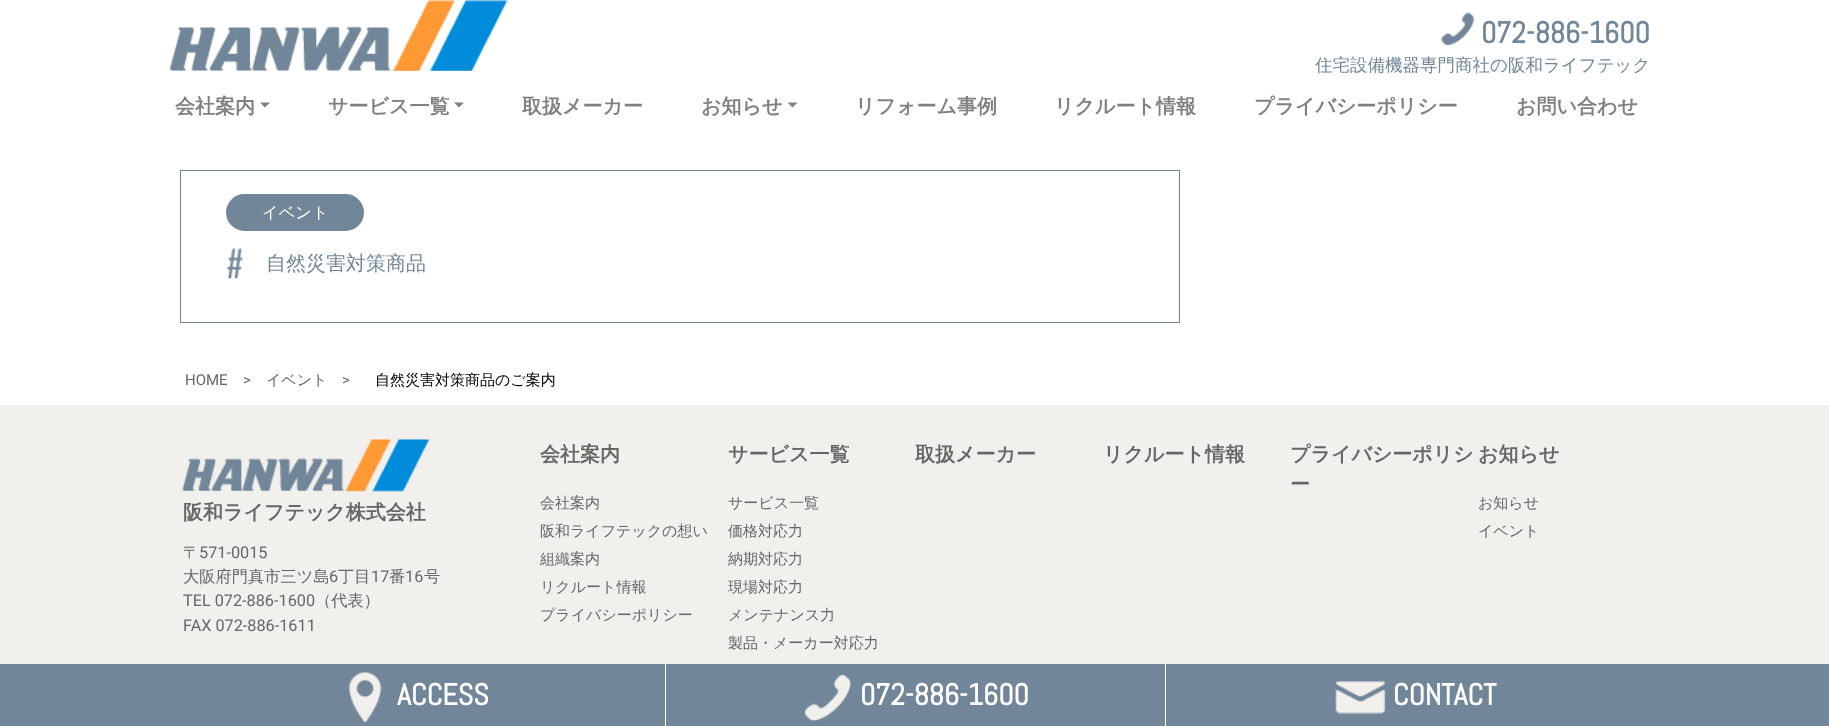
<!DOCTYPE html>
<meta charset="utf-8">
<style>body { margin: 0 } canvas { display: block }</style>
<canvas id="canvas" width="1829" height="726"></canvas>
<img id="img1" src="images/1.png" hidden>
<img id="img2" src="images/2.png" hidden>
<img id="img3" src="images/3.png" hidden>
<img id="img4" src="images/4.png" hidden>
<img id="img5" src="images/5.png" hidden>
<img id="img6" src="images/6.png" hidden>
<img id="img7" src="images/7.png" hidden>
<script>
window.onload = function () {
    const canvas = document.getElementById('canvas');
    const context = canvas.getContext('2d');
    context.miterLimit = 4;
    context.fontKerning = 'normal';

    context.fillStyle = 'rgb(255, 255, 255)';
    context.fillRect(0, 0, 1829, 726);
    context.drawImage(document.getElementById('img1'), 170, 0, 338, 71);
    context.drawImage(document.getElementById('img2'), 1441, 12, 33, 33);
    context.fillStyle = 'rgb(128, 128, 128)';
    context.beginPath();
    context.moveTo(260, 102.5);
    context.lineTo(270, 102.5);
    context.lineTo(265, 107.5);
    context.closePath();
    context.fill();
    context.beginPath();
    context.moveTo(454, 102.5);
    context.lineTo(464, 102.5);
    context.lineTo(459, 107.5);
    context.closePath();
    context.fill();
    context.beginPath();
    context.moveTo(787.5, 102.5);
    context.lineTo(797.5, 102.5);
    context.lineTo(792.5, 107.5);
    context.closePath();
    context.fill();
    context.strokeStyle = 'rgb(114, 134, 153)';
    context.strokeRect(180.5, 170.5, 999, 152);
    context.fillStyle = 'rgb(114, 134, 153)';
    context.beginPath();
    context.roundRect(227.5, 195.5, 135, 34, 17);
    context.fill();
    context.lineWidth = 3;
    context.stroke();
    context.drawImage(document.getElementById('img3'), 226, 248, 17, 31);
    context.fillStyle = 'rgb(241, 240, 236)';
    context.fillRect(0, 405, 1829, 259);
    context.drawImage(document.getElementById('img4'), 182, 439, 247, 53);
    context.fillStyle = 'rgb(114, 134, 153)';
    context.fillRect(0, 664, 1829, 62);
    context.drawImage(document.getElementById('img5'), 348, 672, 34, 51);
    context.fillStyle = 'rgb(255, 255, 255)';
    context.fillRect(665, 664, 1, 62);
    context.drawImage(document.getElementById('img6'), 804, 674, 48, 48);
    context.fillRect(1165, 664, 1, 62);
    context.drawImage(document.getElementById('img7'), 1335, 681, 51, 33);
    context.font = 'bold 30px Abel';
    context.fillStyle = 'rgb(114, 134, 153)';
    context.fillText('072-886-1600', 1481, 43);
    context.font = '500 17.5px WenQuanYi Zen Hei';
    context.fillText('住宅設備機器専門商社の阪和ライフテック', 1315, 71);
    context.font = 'bold 20px WenQuanYi Zen Hei';
    context.fillStyle = 'rgb(128, 128, 128)';
    context.fillText('会社案内', 175, 113);
    context.fillText('サービス一覧', 328, 113);
    context.fillText('取扱メーカー', 522, 113);
    context.fillText('お知らせ', 701, 113);
    context.fillText('リフォーム事例', 855, 113);
    context.fillText('リクルート情報', 1054, 113);
    context.fillText('プライバシーポリシー', 1254, 113);
    context.fillText('お問い合わせ', 1516, 113);
    context.font = '500 16.25px WenQuanYi Zen Hei';
    context.fillStyle = 'rgb(255, 255, 255)';
    context.fillText('イベント', 262, 218);
    context.font = '500 20px WenQuanYi Zen Hei';
    context.fillStyle = 'rgb(114, 134, 153)';
    context.fillText('自然災害対策商品', 266, 270);
    context.font = '15px Roboto';
    context.fillStyle = 'rgb(102, 102, 102)';
    context.fillText('HOME', 185, 385);
    context.fillText('>', 243, 385);
    context.font = '500 15px WenQuanYi Zen Hei';
    context.fillText('イベント', 266, 385);
    context.font = '15px Roboto';
    context.fillText('>', 342, 385);
    context.font = '500 15px WenQuanYi Zen Hei';
    context.fillStyle = 'rgb(0, 0, 0)';
    context.fillText('自然災害対策商品のご案内', 375, 385);
    context.font = 'bold 20px WenQuanYi Zen Hei';
    context.fillStyle = 'rgb(102, 102, 102)';
    context.fillText('阪和ライフテック株式会社', 183, 519);
    context.font = '500 16.25px WenQuanYi Zen Hei';
    context.fillText('〒', 183, 558);
    context.font = '16.25px Roboto';
    context.fillText('571-0015', 199, 558);
    context.font = '500 16.25px WenQuanYi Zen Hei';
    context.fillText('大阪府門真市三ツ島', 183, 582);
    context.font = '16.25px Roboto';
    context.fillText('6', 329, 582);
    context.font = '500 16.25px WenQuanYi Zen Hei';
    context.fillText('丁目', 338, 582);
    context.font = '16.25px Roboto';
    context.fillText('17', 371, 582);
    context.font = '500 16.25px WenQuanYi Zen Hei';
    context.fillText('番', 389, 582);
    context.font = '16.25px Roboto';
    context.fillText('16', 405, 582);
    context.font = '500 16.25px WenQuanYi Zen Hei';
    context.fillText('号', 424, 582);
    context.font = '16.25px Roboto';
    context.fillText('TEL 072-886-1600', 183, 606);
    context.font = '500 16.25px WenQuanYi Zen Hei';
    context.fillText('（代表）', 315, 606);
    context.font = '16.25px Roboto';
    context.fillText('FAX 072-886-1611', 183, 631);
    context.font = 'bold 20px WenQuanYi Zen Hei';
    context.fillText('会社案内', 540, 461);
    context.font = '500 15px WenQuanYi Zen Hei';
    context.fillText('会社案内', 540, 508);
    context.fillText('阪和ライフテックの想い', 540, 536);
    context.fillText('組織案内', 540, 564);
    context.fillText('リクルート情報', 540, 592);
    context.fillText('プライバシーポリシー', 540, 620);
    context.font = 'bold 20px WenQuanYi Zen Hei';
    context.fillText('サービス一覧', 728, 461);
    context.font = '500 15px WenQuanYi Zen Hei';
    context.fillText('サービス一覧', 728, 508);
    context.fillText('価格対応力', 728, 536);
    context.fillText('納期対応力', 728, 564);
    context.fillText('現場対応力', 728, 592);
    context.fillText('メンテナンス力', 728, 620);
    context.fillText('製品・メーカー対応力', 728, 648);
    context.font = 'bold 20px WenQuanYi Zen Hei';
    context.fillText('取扱メーカー', 915, 461);
    context.fillText('リクルート情報', 1103, 461);
    context.fillText('プライバシーポリシ', 1290, 461);
    context.fillText('ー', 1290, 491);
    context.fillText('お知らせ', 1478, 461);
    context.font = '500 15px WenQuanYi Zen Hei';
    context.fillText('お知らせ', 1478, 508);
    context.fillText('イベント', 1478, 536);
    context.font = 'bold 30px Abel';
    context.fillStyle = 'rgb(255, 255, 255)';
    context.fillText('ACCESS', 397, 705);
    context.fillText('072-886-1600', 860, 705);
    context.fillText('CONTACT', 1393, 705);
};
</script>
